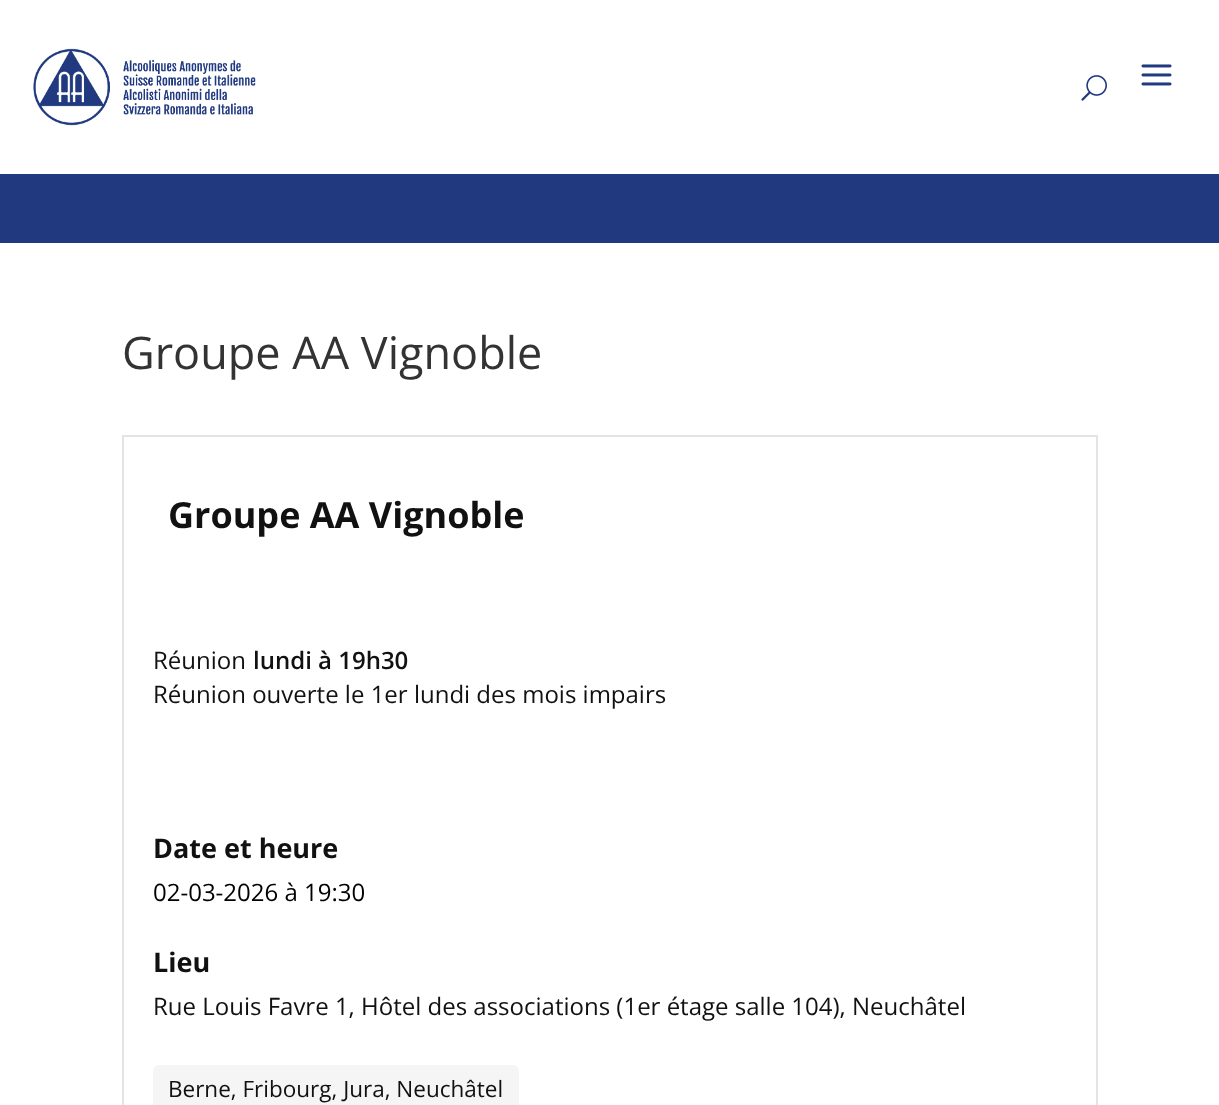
<!DOCTYPE html>
<meta charset="utf-8">
<style>body { margin: 0 } canvas { display: block }</style>
<canvas id="canvas" width="1219" height="1105"></canvas>
<img id="img1" src="images/1.png" hidden>
<img id="img2" src="images/2.png" hidden>
<img id="img3" src="images/3.png" hidden>
<script>
window.onload = function () {
    const canvas = document.getElementById('canvas');
    const context = canvas.getContext('2d');
    context.miterLimit = 4;
    context.fontKerning = 'normal';

    context.fillStyle = 'rgb(255, 255, 255)';
    context.fillRect(0, 0, 1219, 1105);
    context.drawImage(document.getElementById('img1'), 33, 48, 223, 78);
    context.drawImage(document.getElementById('img2'), 1081, 75, 26, 26);
    context.drawImage(document.getElementById('img3'), 1141, 64, 31, 22);
    context.fillStyle = 'rgb(32, 57, 127)';
    context.fillRect(0, 174, 1219, 69);
    context.strokeStyle = 'rgb(228, 228, 228)';
    context.lineWidth = 2;
    context.strokeRect(123, 436, 974, 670);
    context.fillStyle = 'rgb(245, 245, 245)';
    context.beginPath();
    context.roundRect(153, 1065, 366, 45, 6);
    context.fill();
    context.font = '45px Open Sans';
    context.fillStyle = 'rgb(51, 51, 51)';
    context.fillText('Groupe AA Vignoble', 122, 369);
    context.font = 'bold 36px Open Sans';
    context.fillStyle = 'rgb(17, 17, 17)';
    context.fillText('Groupe AA Vignoble', 168, 528);
    context.font = '24px Open Sans';
    context.fillText('Réunion', 153, 669);
    context.font = '600 24px Open Sans';
    context.fillText('lundi à 19h30', 253, 669);
    context.font = '24px Open Sans';
    context.fillText('Réunion ouverte le 1er lundi des mois impairs', 153, 703);
    context.font = 'bold 27px Open Sans';
    context.fillText('Date et heure', 153, 858);
    context.font = '24px Open Sans';
    context.fillStyle = 'rgb(0, 0, 0)';
    context.fillText('02-03-2026 à 19:30', 153, 901);
    context.font = 'bold 27px Open Sans';
    context.fillStyle = 'rgb(17, 17, 17)';
    context.fillText('Lieu', 153, 972);
    context.font = '24px Open Sans';
    context.fillText('Rue Louis Favre 1, Hôtel des associations (1er étage salle 104), Neuchâtel', 153, 1015);
    context.font = '22.5px Open Sans';
    context.fillText('Berne, Fribourg, Jura, Neuchâtel', 168, 1097);
};
</script>
